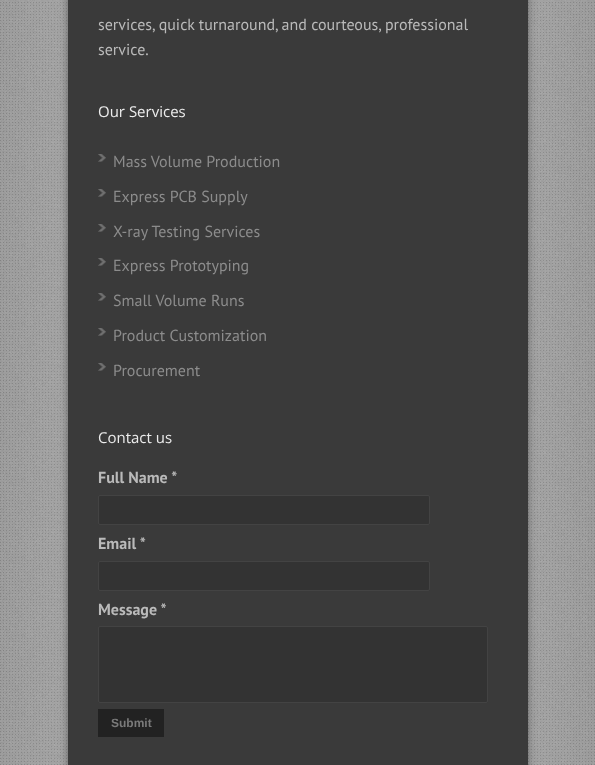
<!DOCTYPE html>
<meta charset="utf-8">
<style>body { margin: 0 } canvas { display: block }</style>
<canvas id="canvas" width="595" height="765"></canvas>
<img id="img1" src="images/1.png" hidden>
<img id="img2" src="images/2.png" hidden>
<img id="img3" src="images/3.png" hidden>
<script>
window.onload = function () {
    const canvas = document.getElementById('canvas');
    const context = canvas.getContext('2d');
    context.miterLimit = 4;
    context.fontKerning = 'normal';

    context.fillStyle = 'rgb(255, 255, 255)';
    context.fillRect(0, 0, 595, 765);
    context.drawImage(document.getElementById('img1'), 0, 0, 595, 765);
    context.drawImage(document.getElementById('img2'), 0, 0, 595, 765);
    context.fillStyle = 'rgba(0, 0, 0, 0.4)';
    context.filter = 'blur(4px)';
    context.beginPath();
    context.rect(68, -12, 460, 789);
    context.fill();
    context.filter = 'none';
    context.fillStyle = 'rgb(58, 58, 58)';
    context.fillRect(68, 0, 460, 765);
    context.drawImage(document.getElementById('img3'), 98, 154, 8, 8);
    context.drawImage(document.getElementById('img3'), 98, 189, 8, 8);
    context.drawImage(document.getElementById('img3'), 98, 224, 8, 8);
    context.drawImage(document.getElementById('img3'), 98, 258, 8, 8);
    context.drawImage(document.getElementById('img3'), 98, 293, 8, 8);
    context.drawImage(document.getElementById('img3'), 98, 328, 8, 8);
    context.drawImage(document.getElementById('img3'), 98, 363, 8, 8);
    context.fillStyle = 'rgb(51, 51, 51)';
    context.beginPath();
    context.roundRect(98.5, 495.5, 331, 29, 1.5);
    context.fill();
    context.strokeStyle = 'rgb(67, 67, 67)';
    context.stroke();
    context.beginPath();
    context.roundRect(98.5, 561.5, 331, 29, 1.5);
    context.fill();
    context.stroke();
    context.beginPath();
    context.roundRect(98.5, 626.5, 389, 76, 1.5);
    context.fill();
    context.stroke();
    context.fillStyle = 'rgb(34, 34, 34)';
    context.fillRect(98, 709, 66, 28);
    context.font = '16px PT Sans';
    context.fillStyle = 'rgb(186, 186, 186)';
    context.fillText('services, quick turnaround, and courteous, professional', 98, 30);
    context.fillText('service.', 98, 55);
    context.font = '15px Open Sans';
    context.fillStyle = 'rgb(236, 236, 236)';
    context.fillText('Our Services', 98, 117);
    context.font = '16px PT Sans';
    context.fillStyle = 'rgb(140, 140, 140)';
    context.fillText('Mass Volume Production', 113, 167);
    context.fillText('Express PCB Supply', 113, 202);
    context.fillText('X-ray Testing Services', 113, 237);
    context.fillText('Express Prototyping', 113, 271);
    context.fillText('Small Volume Runs', 113, 306);
    context.fillText('Product Customization', 113, 341);
    context.fillText('Procurement', 113, 376);
    context.font = '15px Open Sans';
    context.fillStyle = 'rgb(236, 236, 236)';
    context.fillText('Contact us', 98, 443);
    context.font = 'bold 16px PT Sans';
    context.fillStyle = 'rgb(186, 186, 186)';
    context.fillText('Full Name *', 98, 483);
    context.fillText('Email *', 98, 549);
    context.fillText('Message *', 98, 615);
    context.font = 'bold 12px Liberation Sans';
    context.fillStyle = 'rgb(122, 122, 122)';
    context.fillText('Submit', 111, 727);
};
</script>
